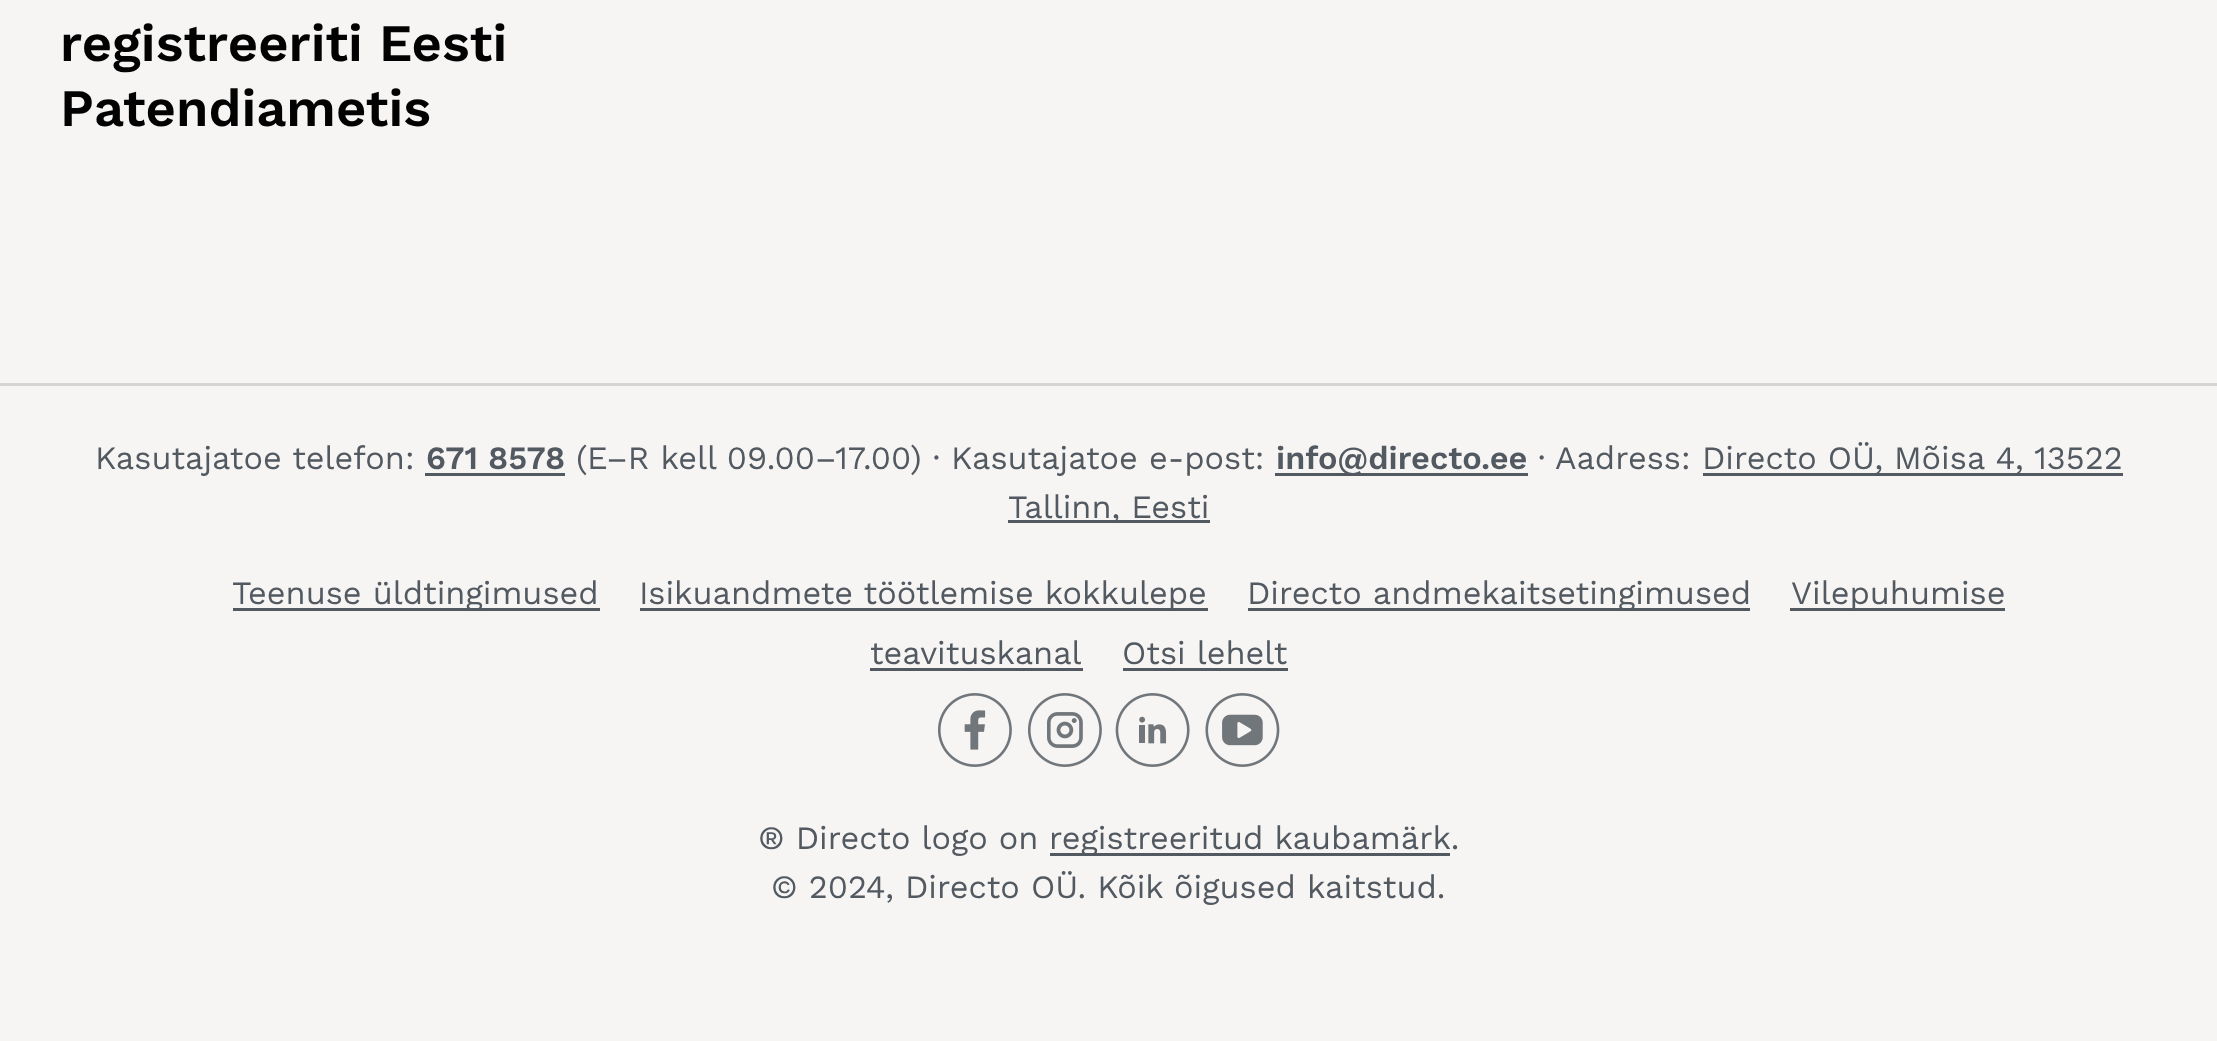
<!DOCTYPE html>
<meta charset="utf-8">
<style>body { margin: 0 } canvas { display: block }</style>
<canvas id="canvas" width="2217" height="1041"></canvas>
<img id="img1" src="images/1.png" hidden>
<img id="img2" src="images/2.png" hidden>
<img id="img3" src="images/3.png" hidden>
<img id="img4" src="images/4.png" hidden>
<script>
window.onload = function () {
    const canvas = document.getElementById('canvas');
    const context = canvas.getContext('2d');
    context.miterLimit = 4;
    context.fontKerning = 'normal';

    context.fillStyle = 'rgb(246, 245, 244)';
    context.fillRect(0, 0, 2217, 1041);
    context.fillStyle = 'rgb(213, 211, 211)';
    context.fillRect(0, 383, 2217, 3);
    context.fillStyle = 'rgb(82, 89, 96)';
    context.fillRect(425, 473, 140, 3);
    context.fillRect(1275, 473, 253, 3);
    context.fillRect(1703, 473, 420, 3);
    context.fillRect(1008, 520, 202, 3);
    context.fillRect(233, 608, 367, 3);
    context.fillRect(640, 608, 568, 3);
    context.fillRect(1248, 608, 502, 3);
    context.fillRect(1790, 608, 215, 3);
    context.fillRect(870, 668, 213, 3);
    context.fillRect(1123, 668, 165, 3);
    context.drawImage(document.getElementById('img1'), 938, 693, 74, 74);
    context.drawImage(document.getElementById('img2'), 1028, 693, 74, 74);
    context.drawImage(document.getElementById('img3'), 1115, 693, 75, 74);
    context.drawImage(document.getElementById('img4'), 1205, 693, 75, 74);
    context.fillRect(1050, 853, 400, 3);
    context.font = '600 52.5px Work Sans';
    context.fillStyle = 'rgb(2, 2, 2)';
    context.fillText('registreeriti Eesti', 60, 61);
    context.fillText('Patendiametis', 60, 126);
    context.font = '32.5px Work Sans';
    context.fillStyle = 'rgb(82, 89, 96)';
    context.fillText('Kasutajatoe telefon:', 95, 469);
    context.font = '600 32.5px Work Sans';
    context.fillText('671 8578', 426, 469);
    context.font = '32.5px Work Sans';
    context.fillText('(E–R kell 09.00–17.00) · Kasutajatoe e-post:', 576, 469);
    context.font = '600 32.5px Work Sans';
    context.fillText('info@directo.ee', 1276, 469);
    context.font = '32.5px Work Sans';
    context.fillText('·', 1538, 469);
    context.fillText('Aadress:', 1555, 469);
    context.fillText('Directo OÜ, Mõisa 4, 13522', 1702, 469);
    context.fillText('Tallinn, Eesti', 1008, 518);
    context.fillText('Teenuse üldtingimused', 232, 604);
    context.fillText('Isikuandmete töötlemise kokkulepe', 639, 604);
    context.fillText('Directo andmekaitsetingimused', 1247, 604);
    context.fillText('Vilepuhumise', 1791, 604);
    context.fillText('teavituskanal', 870, 664);
    context.fillText('Otsi lehelt', 1122, 664);
    context.fillText('® Directo logo on', 758, 849);
    context.fillText('registreeritud kaubamärk.', 1049, 849);
    context.fillText('© 2024, Directo OÜ. Kõik õigused kaitstud.', 771, 898);
};
</script>
